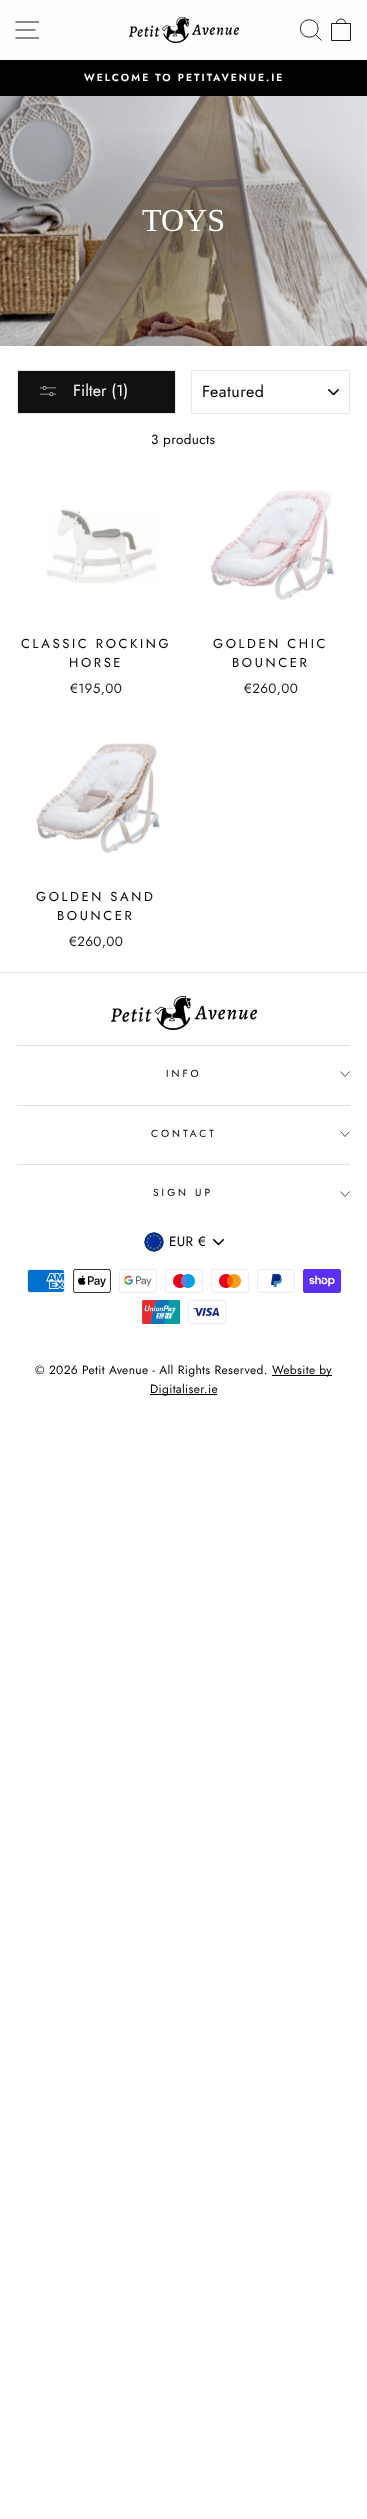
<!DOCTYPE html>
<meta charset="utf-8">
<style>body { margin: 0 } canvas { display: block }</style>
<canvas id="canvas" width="367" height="2519"></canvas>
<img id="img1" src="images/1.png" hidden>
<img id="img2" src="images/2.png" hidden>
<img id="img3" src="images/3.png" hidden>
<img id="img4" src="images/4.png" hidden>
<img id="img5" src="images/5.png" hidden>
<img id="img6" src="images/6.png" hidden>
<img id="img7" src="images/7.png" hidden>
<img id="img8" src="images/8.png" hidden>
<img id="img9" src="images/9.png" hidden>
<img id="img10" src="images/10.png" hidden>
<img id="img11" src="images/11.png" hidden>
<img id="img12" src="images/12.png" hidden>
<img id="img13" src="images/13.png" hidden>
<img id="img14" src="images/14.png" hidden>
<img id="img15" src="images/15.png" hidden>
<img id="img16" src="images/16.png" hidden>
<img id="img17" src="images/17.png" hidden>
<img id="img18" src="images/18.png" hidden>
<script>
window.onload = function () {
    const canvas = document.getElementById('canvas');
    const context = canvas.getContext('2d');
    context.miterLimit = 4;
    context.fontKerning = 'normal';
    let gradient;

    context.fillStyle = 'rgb(255, 255, 255)';
    context.fillRect(0, 0, 367, 2519);
    context.fillStyle = 'rgb(255, 252, 252)';
    context.fillRect(0, 0, 367, 60);
    context.beginPath();
    context.moveTo(15.5, 22);
    context.lineTo(39, 22);
    context.moveTo(15.5, 30);
    context.lineTo(35.5, 30);
    context.moveTo(15.5, 38);
    context.lineTo(39, 38);
    context.strokeStyle = 'rgb(0, 0, 0)';
    context.lineWidth = 0.9;
    context.stroke();
    context.drawImage(document.getElementById('img1'), 129, 17, 110, 26);
    context.beginPath();
    context.moveTo(318, 28.5);
    context.bezierCurveTo(318, 40, 300.5, 40, 300.5, 28.5);
    context.bezierCurveTo(300.5, 17, 318, 17, 318, 28.5);
    context.closePath();
    context.moveTo(321.5, 40.5);
    context.lineTo(315.5, 34.5);
    context.moveTo(331.5, 23.5);
    context.lineTo(350.5, 23.5);
    context.lineTo(350.5, 40.5);
    context.lineTo(331.5, 40.5);
    context.closePath();
    context.moveTo(336.5, 23.5);
    context.bezierCurveTo(336.5, 17.5, 345.5, 17.5, 345.5, 23.5);
    context.stroke();
    context.fillStyle = 'rgb(0, 0, 0)';
    context.fillRect(0, 60, 367, 36);
    context.drawImage(document.getElementById('img2'), 0, 96, 367, 250);
    gradient = context.createRadialGradient(184, 458.07, 0, 184, 458.07, 342);
    gradient.addColorStop(0, 'rgba(0, 0, 0, 0.2)');
    gradient.addColorStop(0.6, 'rgba(0, 0, 0, 0)');
    context.fillStyle = gradient;
    context.beginPath();
    context.rect(1, 133, 366, 176);
    context.save();
    context.clip();
    context.scale(1, 165 / 342);
    context.fillRect(0, 0, 367, 5222);
    context.restore();
    context.fillStyle = 'rgb(17, 17, 17)';
    context.beginPath();
    context.rect(17.5, 370.5, 158, 43);
    context.fill();
    context.strokeStyle = 'rgb(232, 232, 225)';
    context.lineWidth = 1;
    context.stroke();
    context.drawImage(document.getElementById('img3'), 39, 386, 18, 10);
    context.drawImage(document.getElementById('img4'), 328, 389, 11, 6);
    context.strokeRect(191.5, 370.5, 158, 43);
    context.drawImage(document.getElementById('img5'), 46, 509, 111, 75);
    context.drawImage(document.getElementById('img6'), 210, 490, 125, 110);
    context.drawImage(document.getElementById('img7'), 36, 743, 125, 111);
    context.fillStyle = 'rgb(232, 232, 225)';
    context.fillRect(0, 972, 367, 1);
    context.drawImage(document.getElementById('img8'), 111, 996, 146, 34);
    context.fillStyle = 'rgb(224, 224, 224)';
    context.fillRect(17, 1045, 333, 1);
    context.beginPath();
    context.moveTo(340.5, 1071.5);
    context.lineTo(345, 1076.5);
    context.lineTo(349.5, 1071.5);
    context.strokeStyle = 'rgb(0, 0, 0)';
    context.lineWidth = 0.7;
    context.stroke();
    context.fillRect(17, 1105, 333, 1);
    context.beginPath();
    context.moveTo(340.5, 1131.5);
    context.lineTo(345, 1136.5);
    context.lineTo(349.5, 1131.5);
    context.stroke();
    context.fillRect(17, 1164, 333, 1);
    context.beginPath();
    context.moveTo(340.5, 1191.5);
    context.lineTo(345, 1196.5);
    context.lineTo(349.5, 1191.5);
    context.stroke();
    context.drawImage(document.getElementById('img4'), 213, 1239, 11, 6);
    context.drawImage(document.getElementById('img9'), 144, 1232, 20, 20);
    context.drawImage(document.getElementById('img10'), 27, 1269, 38, 24);
    context.drawImage(document.getElementById('img11'), 73, 1269, 38, 24);
    context.drawImage(document.getElementById('img12'), 119, 1269, 38, 24);
    context.drawImage(document.getElementById('img13'), 165, 1269, 38, 24);
    context.drawImage(document.getElementById('img14'), 211, 1269, 38, 24);
    context.drawImage(document.getElementById('img15'), 257, 1269, 38, 24);
    context.drawImage(document.getElementById('img16'), 303, 1269, 38, 24);
    context.drawImage(document.getElementById('img17'), 142, 1300, 38, 24);
    context.drawImage(document.getElementById('img18'), 188, 1300, 38, 24);
    context.fillStyle = 'rgb(0, 0, 0)';
    context.fillRect(272, 1375, 60, 1);
    context.fillRect(150, 1394, 67, 1);
    context.letterSpacing = '2.05px';
    context.font = '600 10.25px Jost';
    context.fillStyle = 'rgb(255, 255, 255)';
    context.fillText('WELCOME TO PETITAVENUE.IE', 84, 81);
    context.letterSpacing = '0px';
    context.font = '32px Liberation Serif';
    context.fillText('TOYS', 142, 231);
    context.font = '16px Jost';
    context.fillText('Filter (1)', 73, 396);
    context.letterSpacing = '0.5px';
    context.fillStyle = 'rgb(0, 0, 0)';
    context.fillText('Featured', 202, 397);
    context.letterSpacing = '0.35px';
    context.font = '13.5px Jost';
    context.fillText('3 products', 151, 444);
    context.letterSpacing = '2.6px';
    context.font = '13px Jost';
    context.fillText('CLASSIC ROCKING', 21, 648);
    context.fillText('HORSE', 69, 667);
    context.letterSpacing = '0.35px';
    context.font = '13.5px Jost';
    context.fillStyle = 'rgb(28, 29, 29)';
    context.fillText('€195,00', 70, 693);
    context.letterSpacing = '2.6px';
    context.font = '13px Jost';
    context.fillStyle = 'rgb(0, 0, 0)';
    context.fillText('GOLDEN CHIC', 213, 648);
    context.fillText('BOUNCER', 232, 667);
    context.letterSpacing = '0.35px';
    context.font = '13.5px Jost';
    context.fillStyle = 'rgb(28, 29, 29)';
    context.fillText('€260,00', 244, 693);
    context.letterSpacing = '2.6px';
    context.font = '13px Jost';
    context.fillStyle = 'rgb(0, 0, 0)';
    context.fillText('GOLDEN SAND', 36, 901);
    context.fillText('BOUNCER', 57, 920);
    context.letterSpacing = '0.35px';
    context.font = '13.5px Jost';
    context.fillStyle = 'rgb(28, 29, 29)';
    context.fillText('€260,00', 69, 946);
    context.letterSpacing = '3px';
    context.font = '10.25px Jost';
    context.fillStyle = 'rgb(0, 0, 0)';
    context.fillText('INFO', 166, 1077);
    context.fillText('CONTACT', 151, 1137);
    context.fillText('SIGN UP', 153, 1196);
    context.letterSpacing = '0.35px';
    context.font = '13.5px Jost';
    context.fillText('EUR €', 169, 1246);
    context.font = '12px Jost';
    context.fillText('© 2026 Petit Avenue - All Rights Reserved.', 35, 1374);
    context.fillText('Website by', 272, 1374);
    context.fillText('Digitaliser.ie', 150, 1393);
};
</script>
